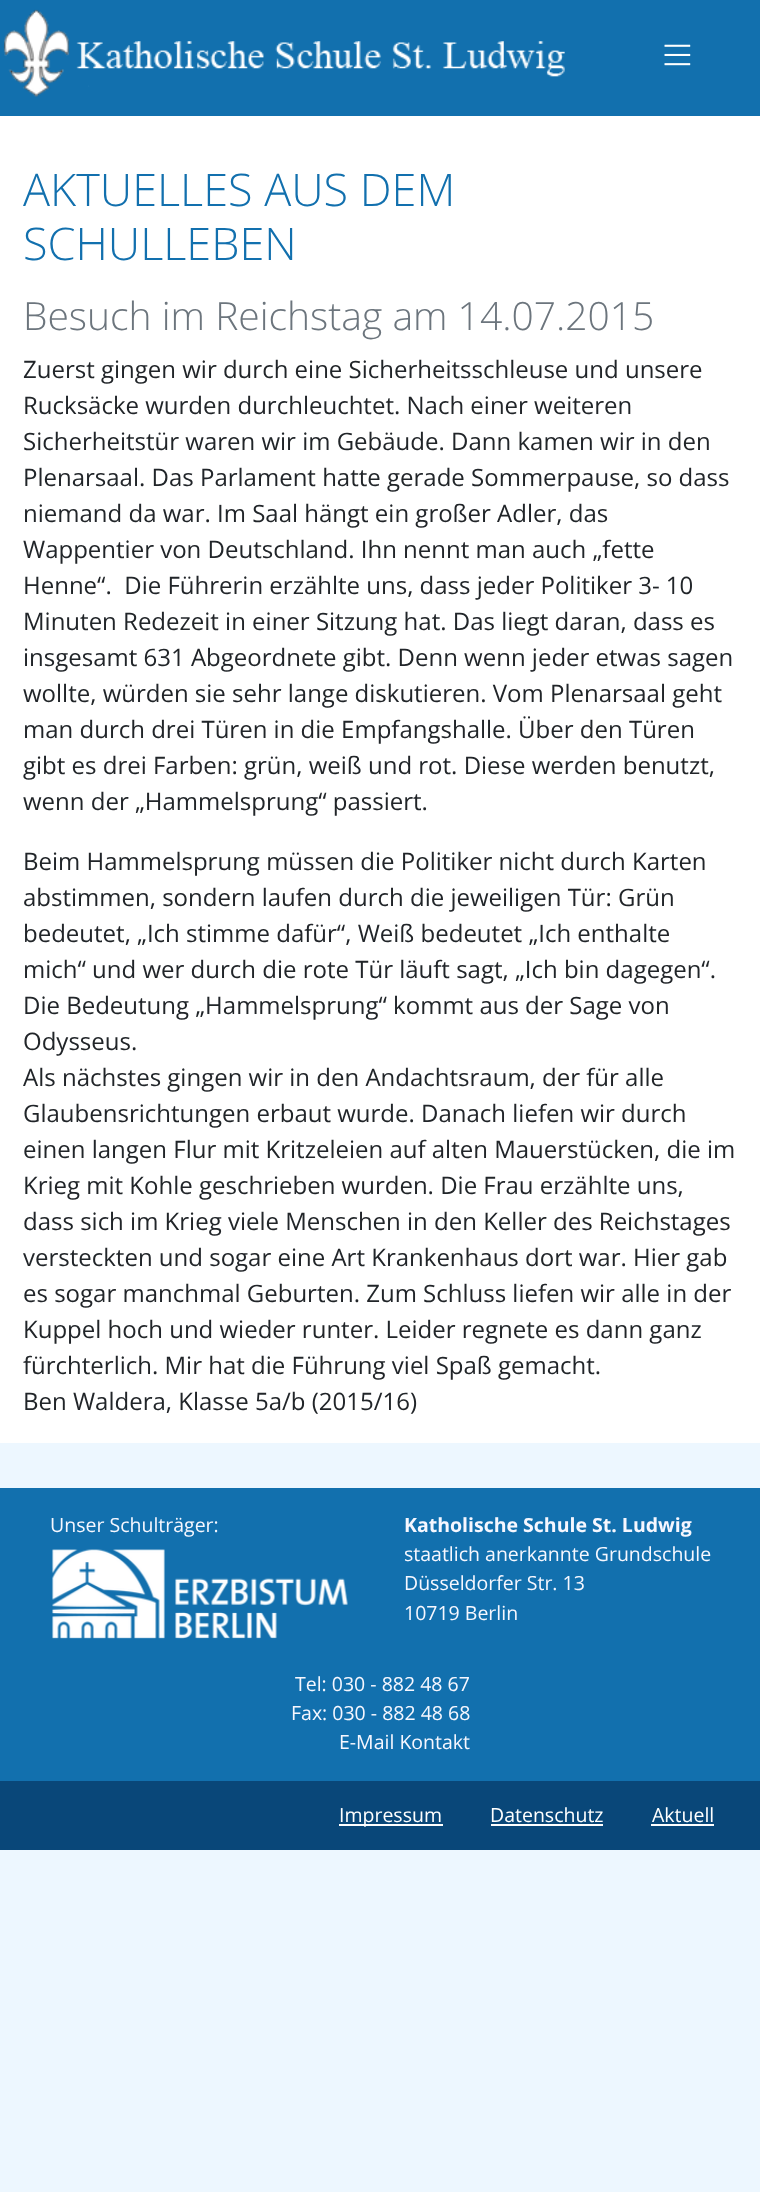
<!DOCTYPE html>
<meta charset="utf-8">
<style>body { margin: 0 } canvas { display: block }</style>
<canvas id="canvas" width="760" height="2192"></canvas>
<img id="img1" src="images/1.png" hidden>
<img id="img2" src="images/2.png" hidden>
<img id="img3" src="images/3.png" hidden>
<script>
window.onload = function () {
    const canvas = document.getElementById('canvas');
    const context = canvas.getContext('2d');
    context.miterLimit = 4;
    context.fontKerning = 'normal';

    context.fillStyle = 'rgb(237, 247, 255)';
    context.fillRect(0, 0, 760, 2192);
    context.fillStyle = 'rgb(18, 112, 174)';
    context.fillRect(0, 0, 760, 116);
    context.drawImage(document.getElementById('img1'), 3, 9, 562, 88);
    context.drawImage(document.getElementById('img2'), 664, 44, 27, 22);
    context.fillStyle = 'rgb(255, 255, 255)';
    context.fillRect(0, 116, 760, 1327);
    context.fillStyle = 'rgb(18, 112, 174)';
    context.fillRect(0, 1488, 760, 293);
    context.drawImage(document.getElementById('img3'), 52, 1549, 296, 90);
    context.fillStyle = 'rgb(9, 71, 121)';
    context.fillRect(0, 1781, 760, 69);
    context.fillStyle = 'rgb(255, 255, 255)';
    context.fillRect(339, 1824, 104, 2);
    context.fillRect(491, 1824, 112, 2);
    context.fillRect(651, 1824, 63, 2);
    context.font = '300 45px Open Sans';
    context.fillStyle = 'rgb(18, 112, 174)';
    context.fillText('AKTUELLES AUS DEM', 23, 206);
    context.fillText('SCHULLEBEN', 23, 260);
    context.font = '300 39px Open Sans';
    context.fillStyle = 'rgb(108, 117, 125)';
    context.fillText('Besuch im Reichstag am 14.07.2015', 23, 330);
    context.font = '24px Open Sans';
    context.fillStyle = 'rgb(33, 37, 41)';
    context.fillText('Zuerst gingen wir durch eine Sicherheitsschleuse und unsere', 23, 378);
    context.fillText('Rucksäcke wurden durchleuchtet. Nach einer weiteren', 23, 414);
    context.fillText('Sicherheitstür waren wir im Gebäude. Dann kamen wir in den', 23, 450);
    context.fillText('Plenarsaal. Das Parlament hatte gerade Sommerpause, so dass', 23, 486);
    context.fillText('niemand da war. Im Saal hängt ein großer Adler, das', 23, 522);
    context.fillText('Wappentier von Deutschland. Ihn nennt man auch „fette', 23, 558);
    context.fillText('Henne“.  Die Führerin erzählte uns, dass jeder Politiker 3- 10', 23, 594);
    context.fillText('Minuten Redezeit in einer Sitzung hat. Das liegt daran, dass es', 23, 630);
    context.fillText('insgesamt 631 Abgeordnete gibt. Denn wenn jeder etwas sagen', 23, 666);
    context.fillText('wollte, würden sie sehr lange diskutieren. Vom Plenarsaal geht', 23, 702);
    context.fillText('man durch drei Türen in die Empfangshalle. Über den Türen', 23, 738);
    context.fillText('gibt es drei Farben: grün, weiß und rot. Diese werden benutzt,', 23, 774);
    context.fillText('wenn der „Hammelsprung“ passiert.', 23, 810);
    context.fillText('Beim Hammelsprung müssen die Politiker nicht durch Karten', 23, 870);
    context.fillText('abstimmen, sondern laufen durch die jeweiligen Tür: Grün', 23, 906);
    context.fillText('bedeutet, „Ich stimme dafür“, Weiß bedeutet „Ich enthalte', 23, 942);
    context.fillText('mich“ und wer durch die rote Tür läuft sagt, „Ich bin dagegen“.', 23, 978);
    context.fillText('Die Bedeutung „Hammelsprung“ kommt aus der Sage von', 23, 1014);
    context.fillText('Odysseus.', 23, 1050);
    context.fillText('Als nächstes gingen wir in den Andachtsraum, der für alle', 23, 1086);
    context.fillText('Glaubensrichtungen erbaut wurde. Danach liefen wir durch', 23, 1122);
    context.fillText('einen langen Flur mit Kritzeleien auf alten Mauerstücken, die im', 23, 1158);
    context.fillText('Krieg mit Kohle geschrieben wurden. Die Frau erzählte uns,', 23, 1194);
    context.fillText('dass sich im Krieg viele Menschen in den Keller des Reichstages', 23, 1230);
    context.fillText('versteckten und sogar eine Art Krankenhaus dort war. Hier gab', 23, 1266);
    context.fillText('es sogar manchmal Geburten. Zum Schluss liefen wir alle in der', 23, 1302);
    context.fillText('Kuppel hoch und wieder runter. Leider regnete es dann ganz', 23, 1338);
    context.fillText('fürchterlich. Mir hat die Führung viel Spaß gemacht.', 23, 1374);
    context.fillText('Ben Waldera, Klasse 5a/b (2015/16)', 23, 1410);
    context.font = '19.5px Open Sans';
    context.fillStyle = 'rgb(246, 247, 255)';
    context.fillText('Unser Schulträger:', 50, 1532);
    context.font = 'bold 19.5px Open Sans';
    context.fillText('Katholische Schule St. Ludwig', 404, 1532);
    context.font = '19.5px Open Sans';
    context.fillText('staatlich anerkannte Grundschule', 404, 1561);
    context.fillText('Düsseldorfer Str. 13', 404, 1590);
    context.fillText('10719 Berlin', 404, 1620);
    context.fillText('Tel: 030 - 882 48 67', 295, 1691);
    context.fillText('Fax: 030 - 882 48 68', 291, 1720);
    context.fillText('E-Mail Kontakt', 339, 1749);
    context.fillStyle = 'rgb(255, 255, 255)';
    context.fillText('Impressum', 339, 1822);
    context.fillText('Datenschutz', 490, 1822);
    context.fillText('Aktuell', 652, 1822);
};
</script>
